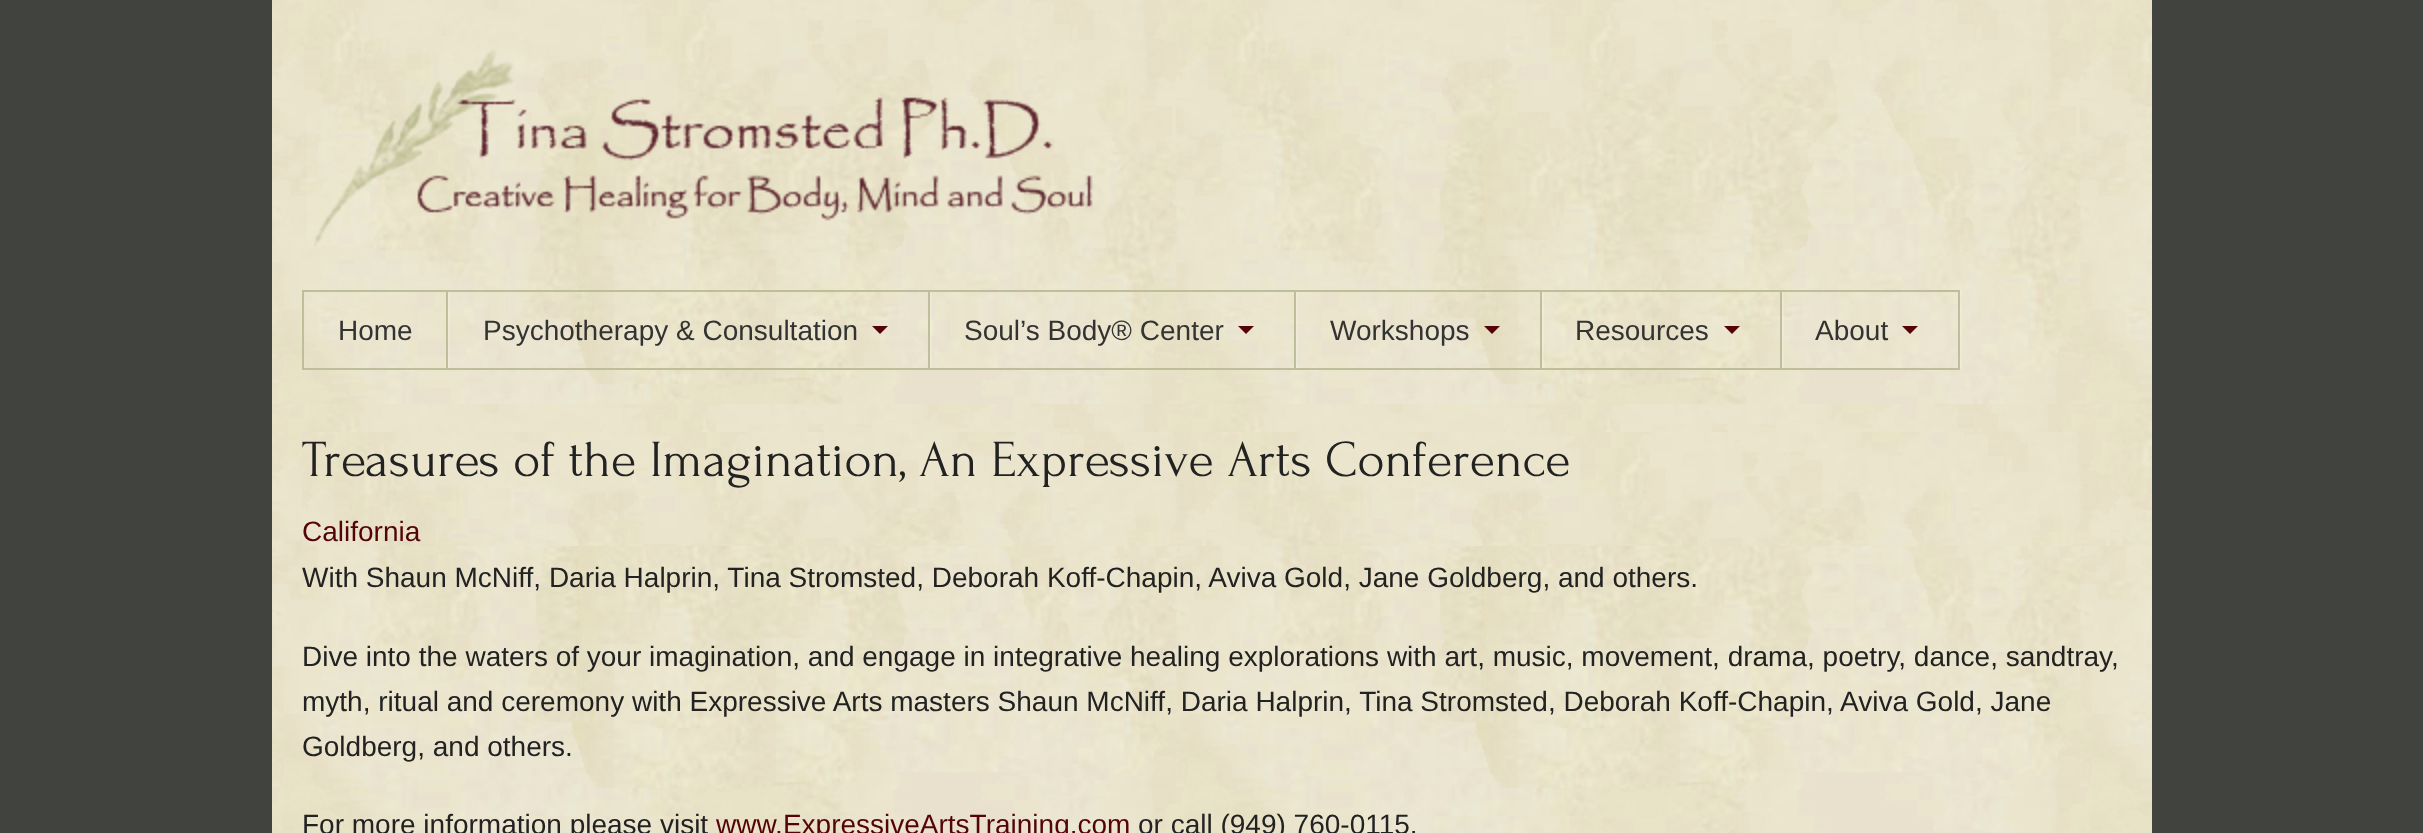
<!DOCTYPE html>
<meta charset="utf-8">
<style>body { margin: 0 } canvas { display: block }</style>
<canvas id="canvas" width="2423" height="833"></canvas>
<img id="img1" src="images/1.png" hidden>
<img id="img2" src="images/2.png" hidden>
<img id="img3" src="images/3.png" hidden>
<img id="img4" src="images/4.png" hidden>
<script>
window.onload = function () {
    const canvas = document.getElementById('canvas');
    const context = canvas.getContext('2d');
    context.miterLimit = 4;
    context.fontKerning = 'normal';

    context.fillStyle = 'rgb(65, 67, 62)';
    context.fillRect(0, 0, 2423, 833);
    context.drawImage(document.getElementById('img1'), 272, 0, 1880, 404);
    context.drawImage(document.getElementById('img2'), 307, 49, 786, 197);
    context.fillStyle = 'rgb(191, 190, 155)';
    context.fillRect(302, 290, 1478, 2);
    context.fillRect(302, 368, 1478, 2);
    context.fillRect(302, 290, 2, 80);
    context.fillStyle = 'rgba(255, 255, 255, 0.2)';
    context.fillRect(448, 292, 2, 76);
    context.fillStyle = 'rgb(191, 190, 155)';
    context.fillRect(446, 290, 2, 80);
    context.fillStyle = 'rgb(84, 4, 9)';
    context.beginPath();
    context.moveTo(872, 326);
    context.lineTo(888, 326);
    context.lineTo(880, 334);
    context.closePath();
    context.fill();
    context.fillStyle = 'rgba(255, 255, 255, 0.2)';
    context.fillRect(930, 292, 2, 76);
    context.fillStyle = 'rgb(191, 190, 155)';
    context.fillRect(928, 290, 2, 80);
    context.fillStyle = 'rgb(84, 4, 9)';
    context.beginPath();
    context.moveTo(1238, 326);
    context.lineTo(1254, 326);
    context.lineTo(1246, 334);
    context.closePath();
    context.fill();
    context.fillStyle = 'rgba(255, 255, 255, 0.2)';
    context.fillRect(1296, 292, 2, 76);
    context.fillStyle = 'rgb(191, 190, 155)';
    context.fillRect(1294, 290, 2, 80);
    context.fillStyle = 'rgb(84, 4, 9)';
    context.beginPath();
    context.moveTo(1484, 326);
    context.lineTo(1500, 326);
    context.lineTo(1492, 334);
    context.closePath();
    context.fill();
    context.fillStyle = 'rgba(255, 255, 255, 0.2)';
    context.fillRect(1542, 292, 2, 76);
    context.fillStyle = 'rgb(191, 190, 155)';
    context.fillRect(1540, 290, 2, 80);
    context.fillStyle = 'rgb(84, 4, 9)';
    context.beginPath();
    context.moveTo(1724, 326);
    context.lineTo(1740, 326);
    context.lineTo(1732, 334);
    context.closePath();
    context.fill();
    context.fillStyle = 'rgba(255, 255, 255, 0.2)';
    context.fillRect(1960, 290, 2, 80);
    context.fillRect(1782, 292, 2, 76);
    context.strokeStyle = 'rgb(191, 190, 155)';
    context.lineWidth = 2;
    context.strokeRect(1781, 291, 178, 78);
    context.fillStyle = 'rgb(84, 4, 9)';
    context.beginPath();
    context.moveTo(1902, 326);
    context.lineTo(1918, 326);
    context.lineTo(1910, 334);
    context.closePath();
    context.fill();
    context.drawImage(document.getElementById('img3'), 272, 404, 1880, 429);
    context.drawImage(document.getElementById('img4'), 302, 432, 1820, 114);
    context.font = '28px Liberation Sans';
    context.fillStyle = 'rgb(51, 51, 51)';
    context.fillText('Home', 338, 340);
    context.fillText('Psychotherapy & Consultation', 483, 340);
    context.fillText('Soul’s Body® Center', 964, 340);
    context.fillText('Workshops', 1330, 340);
    context.fillText('Resources', 1575, 340);
    context.fillText('About', 1815, 340);
    context.font = '52px Forum';
    context.fillStyle = 'rgb(34, 34, 34)';
    context.fillText('Treasures of the Imagination, An Expressive Arts Conference', 302, 476);
    context.font = '28px Liberation Sans';
    context.fillStyle = 'rgb(84, 4, 9)';
    context.fillText('California', 302, 541);
    context.fillStyle = 'rgb(34, 34, 34)';
    context.fillText('With Shaun McNiff, Daria Halprin, Tina Stromsted, Deborah Koff-Chapin, Aviva Gold, Jane Goldberg, and others.', 302, 587);
    context.fillText('Dive into the waters of your imagination, and engage in integrative healing explorations with art, music, movement, drama, poetry, dance, sandtray,', 302, 666);
    context.fillText('myth, ritual and ceremony with Expressive Arts masters Shaun McNiff, Daria Halprin, Tina Stromsted, Deborah Koff-Chapin, Aviva Gold, Jane', 302, 711);
    context.fillText('Goldberg, and others.', 302, 756);
    context.fillText('For more information please visit', 302, 834);
    context.fillStyle = 'rgb(84, 4, 9)';
    context.fillText('www.ExpressiveArtsTraining.com', 716, 834);
    context.fillStyle = 'rgb(34, 34, 34)';
    context.fillText('or call (949) 760-0115.', 1138, 834);
};
</script>
